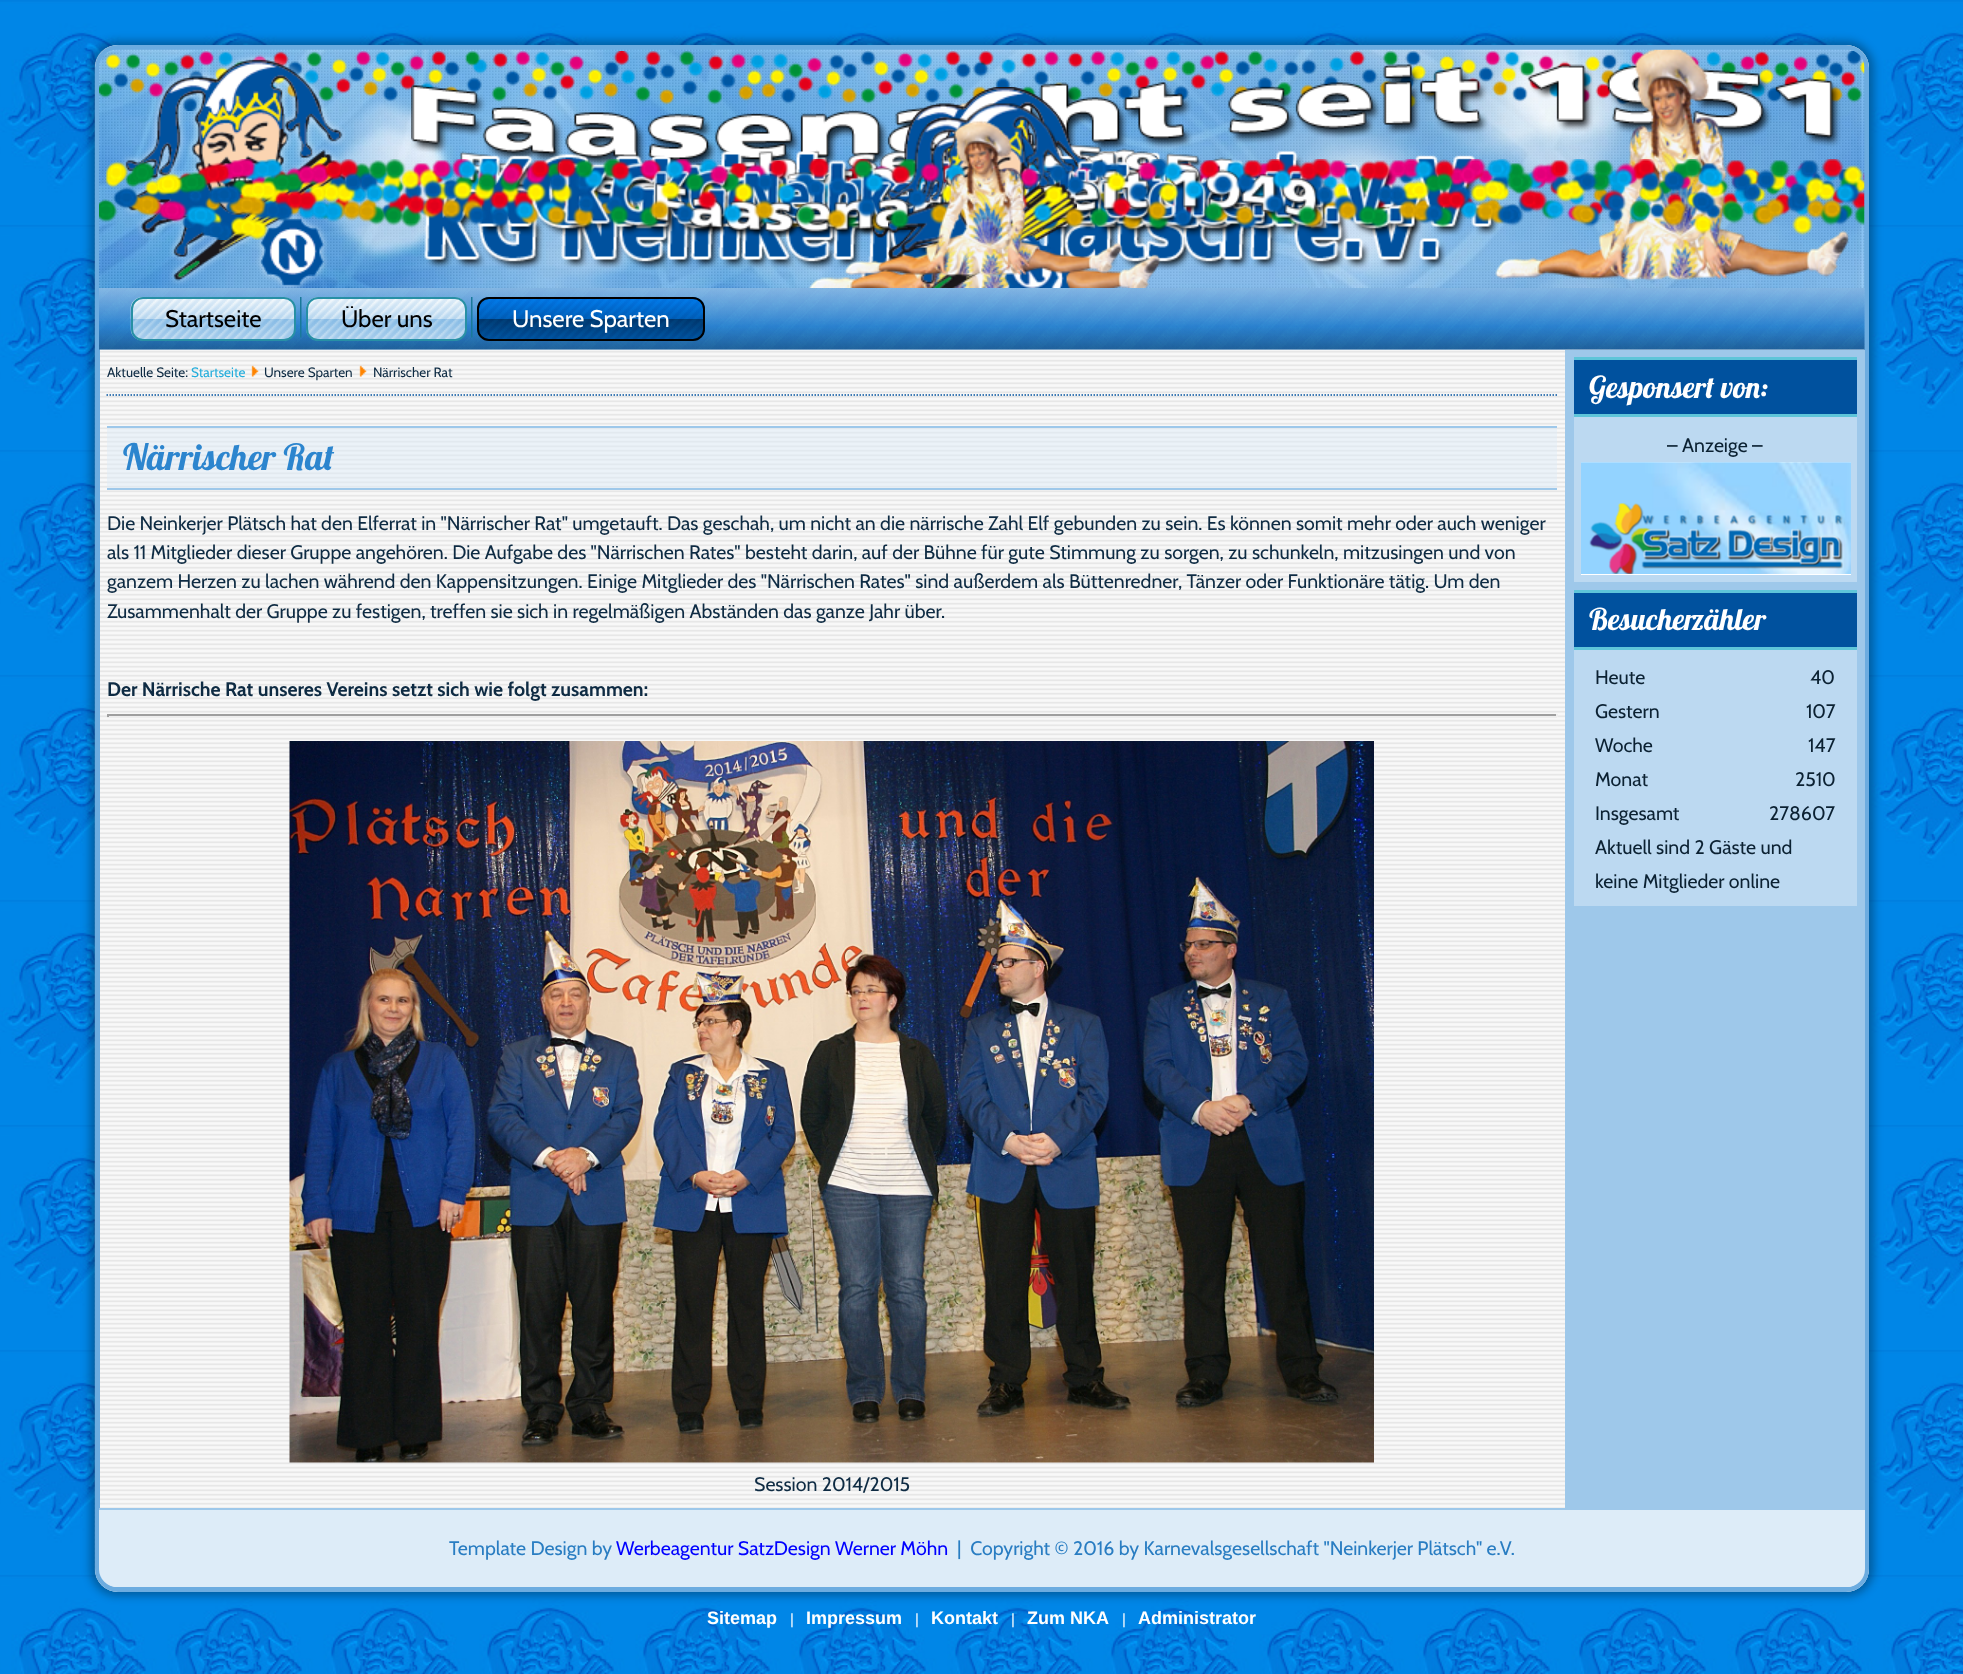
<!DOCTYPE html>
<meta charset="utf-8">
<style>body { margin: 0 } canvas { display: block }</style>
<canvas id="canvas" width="1963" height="1674"></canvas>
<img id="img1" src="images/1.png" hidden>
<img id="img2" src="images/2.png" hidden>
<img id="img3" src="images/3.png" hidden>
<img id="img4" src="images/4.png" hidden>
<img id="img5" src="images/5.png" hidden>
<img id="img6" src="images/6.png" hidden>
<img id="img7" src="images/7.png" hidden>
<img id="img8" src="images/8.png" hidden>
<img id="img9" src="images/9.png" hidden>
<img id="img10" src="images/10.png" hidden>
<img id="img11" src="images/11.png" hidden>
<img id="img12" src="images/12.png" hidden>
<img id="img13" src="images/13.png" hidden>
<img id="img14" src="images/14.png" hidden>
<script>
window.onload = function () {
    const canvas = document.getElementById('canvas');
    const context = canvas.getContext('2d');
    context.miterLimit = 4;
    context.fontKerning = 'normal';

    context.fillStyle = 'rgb(255, 255, 255)';
    context.fillRect(0, 0, 1963, 1674);
    context.drawImage(document.getElementById('img1'), 0, 0, 1963, 1674);
    context.fillStyle = 'rgba(0, 0, 0, 0.3)';
    context.filter = 'blur(4px)';
    context.beginPath();
    context.roundRect(90, 41, 1784, 1555, 27);
    context.fill();
    context.filter = 'none';
    context.fillStyle = 'rgb(255, 255, 255)';
    context.beginPath();
    context.roundRect(95, 45, 1774, 1547, 23);
    context.fill();
    context.drawImage(document.getElementById('img2'), 94, 45, 1775, 1546);
    context.beginPath();
    context.roundRect(97.5, 47.5, 1769, 1542, 20.5);
    context.strokeStyle = 'rgb(108, 172, 224)';
    context.lineWidth = 5;
    context.stroke();
    context.drawImage(document.getElementById('img3'), 99, 49, 1766, 301);
    context.drawImage(document.getElementById('img4'), 99, 288, 1766, 62);
    context.drawImage(document.getElementById('img5'), 130, 297, 166, 44);
    context.beginPath();
    context.roundRect(132, 298, 163, 42, 11);
    context.strokeStyle = 'rgb(39, 144, 165)';
    context.lineWidth = 2;
    context.stroke();
    context.drawImage(document.getElementById('img6'), 300, 297, 2, 41);
    context.drawImage(document.getElementById('img7'), 306, 297, 161, 44);
    context.beginPath();
    context.roundRect(307, 298, 159, 42, 11);
    context.stroke();
    context.drawImage(document.getElementById('img8'), 471, 297, 2, 41);
    context.drawImage(document.getElementById('img9'), 477, 297, 228, 44);
    context.beginPath();
    context.roundRect(478, 298, 226, 42, 11);
    context.strokeStyle = 'rgb(0, 0, 0)';
    context.stroke();
    context.beginPath();
    context.moveTo(106.5, 395);
    context.lineTo(1557, 395);
    context.strokeStyle = 'rgb(0, 81, 158)';
    context.lineWidth = 1.5;
    context.setLineDash([1.5, 1.5]);
    context.stroke();
    context.drawImage(document.getElementById('img10'), 251, 365, 8, 12);
    context.drawImage(document.getElementById('img11'), 359, 365, 8, 12);
    context.fillStyle = 'rgba(221, 236, 248, 0.5)';
    context.fillRect(107, 428, 1450, 60);
    context.fillStyle = 'rgb(158, 200, 234)';
    context.fillRect(107, 426, 1450, 2);
    context.fillRect(107, 488, 1450, 2);
    context.fillStyle = 'rgb(159, 159, 159)';
    context.fillRect(107, 714, 1450, 2);
    context.fillStyle = 'rgb(238, 238, 238)';
    context.fillRect(1556, 714, 2, 3);
    context.fillRect(107, 716, 1450, 2);
    context.fillStyle = 'rgb(159, 159, 159)';
    context.fillRect(107, 714, 2, 3);
    context.drawImage(document.getElementById('img12'), 289, 741, 1085, 722);
    context.fillStyle = 'rgb(158, 200, 234)';
    context.fillRect(1565, 350, 300, 1158);
    context.fillStyle = 'rgb(188, 217, 241)';
    context.fillRect(1574, 417, 283, 165);
    context.fillStyle = 'rgb(0, 81, 158)';
    context.fillRect(1574, 360, 283, 54);
    context.fillStyle = 'rgb(94, 197, 217)';
    context.fillRect(1574, 357, 283, 3);
    context.fillRect(1574, 414, 283, 3);
    context.fillStyle = 'rgb(255, 255, 255)';
    context.fillRect(1581, 462, 270, 113);
    context.drawImage(document.getElementById('img13'), 1581, 462, 270, 112);
    context.drawImage(document.getElementById('img14'), 1589, 503, 254, 71);
    context.fillStyle = 'rgb(188, 217, 241)';
    context.fillRect(1574, 650, 283, 256);
    context.fillStyle = 'rgb(0, 81, 158)';
    context.fillRect(1574, 593, 283, 54);
    context.fillStyle = 'rgb(94, 197, 217)';
    context.fillRect(1574, 590, 283, 3);
    context.fillRect(1574, 647, 283, 3);
    context.fillStyle = 'rgb(221, 236, 248)';
    context.beginPath();
    context.roundRect(99, 1508, 1766, 79, [0, 0, 18, 18]);
    context.fill();
    context.fillStyle = 'rgb(158, 200, 234)';
    context.fillRect(99, 1508, 1766, 2);
    context.font = '24px Cabin';
    context.fillStyle = 'rgb(0, 0, 0)';
    context.fillText('Startseite', 165, 327);
    context.fillText('Über uns', 341, 327);
    context.fillStyle = 'rgb(255, 255, 255)';
    context.fillText('Unsere Sparten', 512, 327);
    context.font = '13.5px Cabin';
    context.fillStyle = 'rgb(14, 43, 67)';
    context.fillText('Aktuelle Seite:', 107, 377);
    context.fillStyle = 'rgb(36, 173, 219)';
    context.fillText('Startseite', 191, 377);
    context.fillStyle = 'rgb(14, 43, 67)';
    context.fillText('Unsere Sparten', 264, 377);
    context.fillText('Närrischer Rat', 373, 377);
    context.font = '36px Lobster';
    context.fillStyle = 'rgb(44, 133, 206)';
    context.fillText('Närrischer Rat', 123, 470);
    context.font = '19.5px Cabin';
    context.fillStyle = 'rgb(14, 43, 67)';
    context.fillText('Die Neinkerjer Plätsch hat den Elferrat in "Närrischer Rat" umgetauft. Das geschah, um nicht an die närrische Zahl Elf gebunden zu sein. Es können somit mehr oder auch weniger', 107, 530);
    context.fillText('als 11 Mitglieder dieser Gruppe angehören. Die Aufgabe des "Närrischen Rates" besteht darin, auf der Bühne für gute Stimmung zu sorgen, zu schunkeln, mitzusingen und von', 107, 559);
    context.fillText('ganzem Herzen zu lachen während den Kappensitzungen. Einige Mitglieder des "Närrischen Rates" sind außerdem als Büttenredner, Tänzer oder Funktionäre tätig. Um den', 107, 588);
    context.fillText('Zusammenhalt der Gruppe zu festigen, treffen sie sich in regelmäßigen Abständen das ganze Jahr über.', 107, 618);
    context.font = 'bold 19.5px Cabin';
    context.fillText('Der Närrische Rat unseres Vereins setzt sich wie folgt zusammen:', 107, 696);
    context.font = '19.5px Cabin';
    context.fillText('Session 2014/2015', 754, 1491);
    context.font = '30px Lobster';
    context.fillStyle = 'rgb(255, 255, 255)';
    context.fillText('Gesponsert von:', 1589, 398);
    context.font = '19.5px Cabin';
    context.fillStyle = 'rgb(11, 33, 50)';
    context.fillText('– Anzeige –', 1667, 452);
    context.font = '30px Lobster';
    context.fillStyle = 'rgb(255, 255, 255)';
    context.fillText('Besucherzähler', 1589, 630);
    context.font = '19.5px Cabin';
    context.fillStyle = 'rgb(11, 33, 50)';
    context.fillText('Heute', 1595, 684);
    context.fillText('40', 1810, 684);
    context.fillText('Gestern', 1595, 718);
    context.fillText('107', 1806, 718);
    context.fillText('Woche', 1595, 752);
    context.fillText('147', 1808, 752);
    context.fillText('Monat', 1595, 786);
    context.fillText('2510', 1795, 786);
    context.fillText('Insgesamt', 1595, 820);
    context.fillText('278607', 1769, 820);
    context.fillText('Aktuell sind 2 Gäste und', 1595, 854);
    context.fillText('keine Mitglieder online', 1595, 888);
    context.fillStyle = 'rgb(41, 125, 194)';
    context.fillText('Template Design by', 449, 1555);
    context.fillStyle = 'rgb(0, 0, 255)';
    context.fillText('Werbeagentur SatzDesign Werner Möhn', 616, 1555);
    context.fillStyle = 'rgb(41, 125, 194)';
    context.fillText('|  Copyright © 2016 by Karnevalsgesellschaft "Neinkerjer Plätsch" e.V.', 957, 1555);
    context.font = 'bold 18px Liberation Sans';
    context.fillStyle = 'rgb(255, 255, 255)';
    context.fillText('Sitemap', 707, 1624);
    context.font = '15px Liberation Sans';
    context.fillText('|', 790, 1624);
    context.font = 'bold 18px Liberation Sans';
    context.fillText('Impressum', 806, 1624);
    context.font = '15px Liberation Sans';
    context.fillText('|', 915, 1624);
    context.font = 'bold 18px Liberation Sans';
    context.fillText('Kontakt', 931, 1624);
    context.font = '15px Liberation Sans';
    context.fillText('|', 1011, 1624);
    context.font = 'bold 18px Liberation Sans';
    context.fillText('Zum NKA', 1027, 1624);
    context.font = '15px Liberation Sans';
    context.fillText('|', 1122, 1624);
    context.font = 'bold 18px Liberation Sans';
    context.fillText('Administrator', 1138, 1624);
};
</script>
